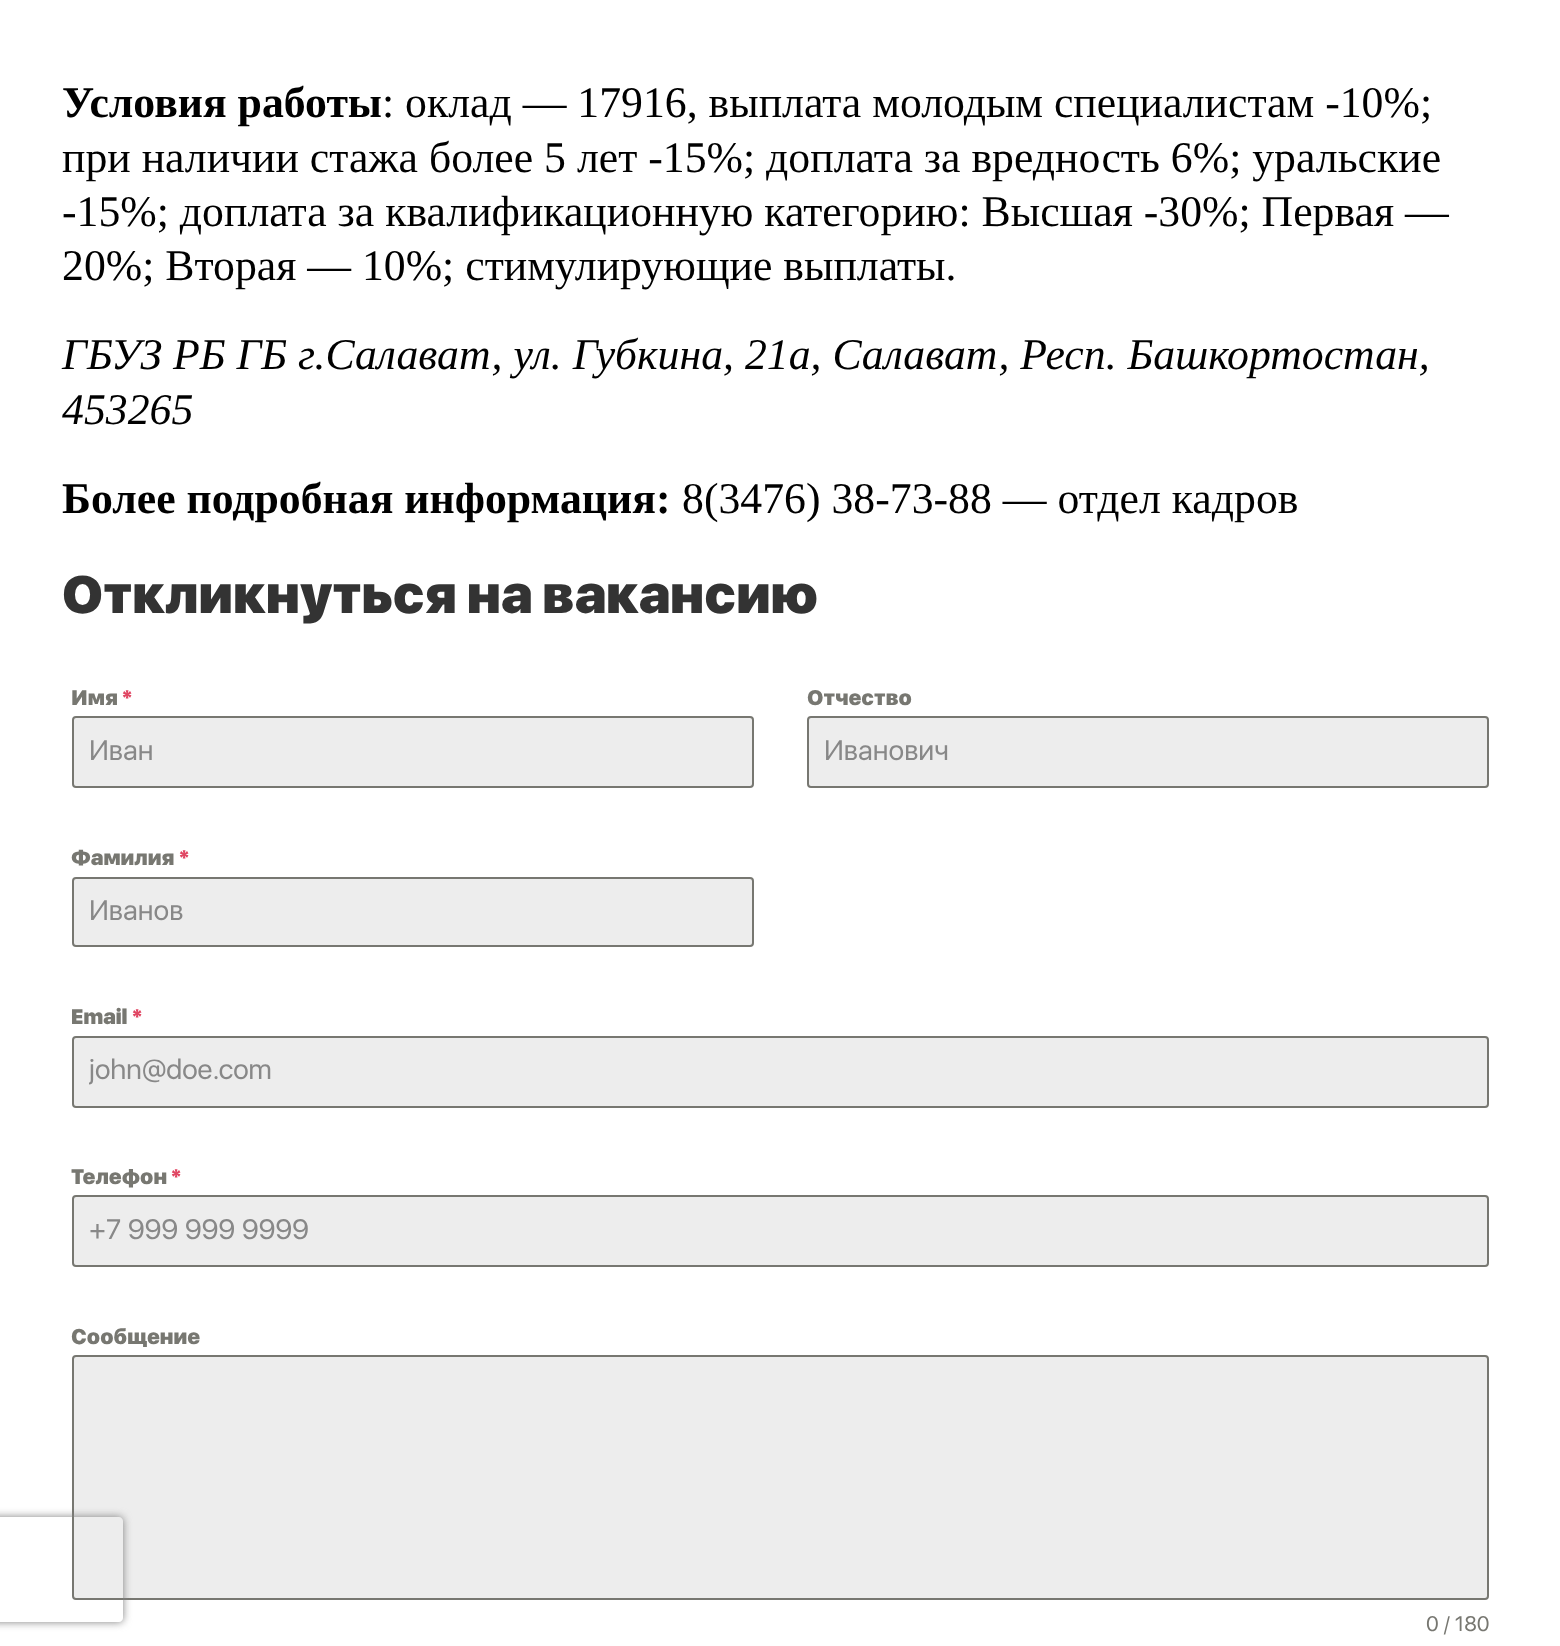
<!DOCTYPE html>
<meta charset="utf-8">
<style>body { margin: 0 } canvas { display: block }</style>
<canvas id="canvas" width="1560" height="1646"></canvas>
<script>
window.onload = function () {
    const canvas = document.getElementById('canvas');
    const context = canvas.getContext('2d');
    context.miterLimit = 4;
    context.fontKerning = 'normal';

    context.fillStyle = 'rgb(255, 255, 255)';
    context.fillRect(0, 0, 1560, 1646);
    context.fillStyle = 'rgb(237, 237, 237)';
    context.beginPath();
    context.roundRect(73, 717, 680, 70, 3);
    context.fill();
    context.strokeStyle = 'rgb(119, 119, 113)';
    context.lineWidth = 2;
    context.stroke();
    context.beginPath();
    context.roundRect(808, 717, 680, 70, 3);
    context.fill();
    context.stroke();
    context.beginPath();
    context.roundRect(73, 878, 680, 68, 3);
    context.fill();
    context.stroke();
    context.beginPath();
    context.roundRect(73, 1037, 1415, 70, 3);
    context.fill();
    context.stroke();
    context.beginPath();
    context.roundRect(73, 1196, 1415, 70, 3);
    context.fill();
    context.stroke();
    context.beginPath();
    context.roundRect(73, 1356, 1415, 243, 3);
    context.fill();
    context.stroke();
    context.save();
    context.beginPath();
    context.moveTo(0, 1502);
    context.lineTo(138, 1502);
    context.lineTo(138, 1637);
    context.lineTo(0, 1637);
    context.closePath();
    context.moveTo(-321, 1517);
    context.lineTo(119, 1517);
    context.bezierCurveTo(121, 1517, 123, 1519, 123, 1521);
    context.lineTo(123, 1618);
    context.bezierCurveTo(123, 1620, 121, 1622, 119, 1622);
    context.lineTo(-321, 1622);
    context.bezierCurveTo(-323, 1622, -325, 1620, -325, 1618);
    context.lineTo(-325, 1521);
    context.bezierCurveTo(-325, 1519, -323, 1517, -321, 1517);
    context.closePath();
    context.clip('evenodd');
    context.fillStyle = 'rgb(128, 128, 128)';
    context.filter = 'blur(4.5px)';
    context.beginPath();
    context.roundRect(-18, 1517, 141, 105, 4);
    context.fill();
    context.filter = 'none';
    context.restore();
    context.font = 'bold 43.75px Liberation Serif';
    context.fillStyle = 'rgb(0, 0, 0)';
    context.fillText('Условия работы', 62, 117);
    context.font = '43.75px Liberation Serif';
    context.fillText(': оклад — 17916, выплата молодым специалистам -10%;', 382, 117);
    context.fillText('при наличии стажа более 5 лет -15%; доплата за вредность 6%; уральские', 62, 172);
    context.fillText('-15%; доплата за квалификационную категорию: Высшая -30%; Первая —', 62, 226);
    context.fillText('20%; Вторая — 10%; стимулирующие выплаты.', 62, 280);
    context.font = 'italic 43.75px Liberation Serif';
    context.fillText('ГБУЗ РБ ГБ г.Салават, ул. Губкина, 21а, Салават, Респ. Башкортостан,', 62, 369);
    context.fillText('453265', 62, 424);
    context.font = 'bold 43.75px Liberation Serif';
    context.fillText('Более подробная информация:', 62, 513);
    context.font = '43.75px Liberation Serif';
    context.fillText('8(3476) 38-73-88 — отдел кадров', 682, 513);
    context.font = '900 52.5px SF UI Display';
    context.fillStyle = 'rgb(51, 51, 51)';
    context.fillText('Откликнуться на вакансию', 62, 613);
    context.font = '900 21px SF UI Display';
    context.fillStyle = 'rgb(119, 119, 113)';
    context.fillText('Имя', 71, 705);
    context.fillStyle = 'rgb(224, 69, 98)';
    context.fillText('*', 122, 705);
    context.font = '28px SF UI Display';
    context.fillStyle = 'rgb(136, 136, 136)';
    context.fillText('Иван', 89, 760);
    context.font = '900 21px SF UI Display';
    context.fillStyle = 'rgb(119, 119, 113)';
    context.fillText('Отчество', 807, 705);
    context.font = '28px SF UI Display';
    context.fillStyle = 'rgb(136, 136, 136)';
    context.fillText('Иванович', 824, 760);
    context.font = '900 21px SF UI Display';
    context.fillStyle = 'rgb(119, 119, 113)';
    context.fillText('Фамилия', 71, 865);
    context.fillStyle = 'rgb(224, 69, 98)';
    context.fillText('*', 179, 865);
    context.font = '28px SF UI Display';
    context.fillStyle = 'rgb(136, 136, 136)';
    context.fillText('Иванов', 89, 920);
    context.font = '900 21px SF UI Display';
    context.fillStyle = 'rgb(119, 119, 113)';
    context.fillText('Email', 71, 1024);
    context.fillStyle = 'rgb(224, 69, 98)';
    context.fillText('*', 132, 1024);
    context.save();
    context.beginPath();
    context.rect(89, 1054, 1383, 33);
    context.clip();
    context.font = '28px SF UI Display';
    context.fillStyle = 'rgb(136, 136, 136)';
    context.fillText('john@doe.com', 89, 1079);
    context.restore();
    context.fillStyle = 'rgb(119, 119, 113)';
    context.fillText('Телефон', 71, 1184);
    context.fillStyle = 'rgb(224, 69, 98)';
    context.fillText('*', 171, 1184);
    context.font = '28px SF UI Display';
    context.fillStyle = 'rgb(136, 136, 136)';
    context.fillText('+7 999 999 9999', 89, 1239);
    context.font = '900 21px SF UI Display';
    context.fillStyle = 'rgb(119, 119, 113)';
    context.fillText('Сообщение', 71, 1344);
    context.font = '21px SF UI Display';
    context.fillText('0 / 180', 1426, 1631);
};
</script>
